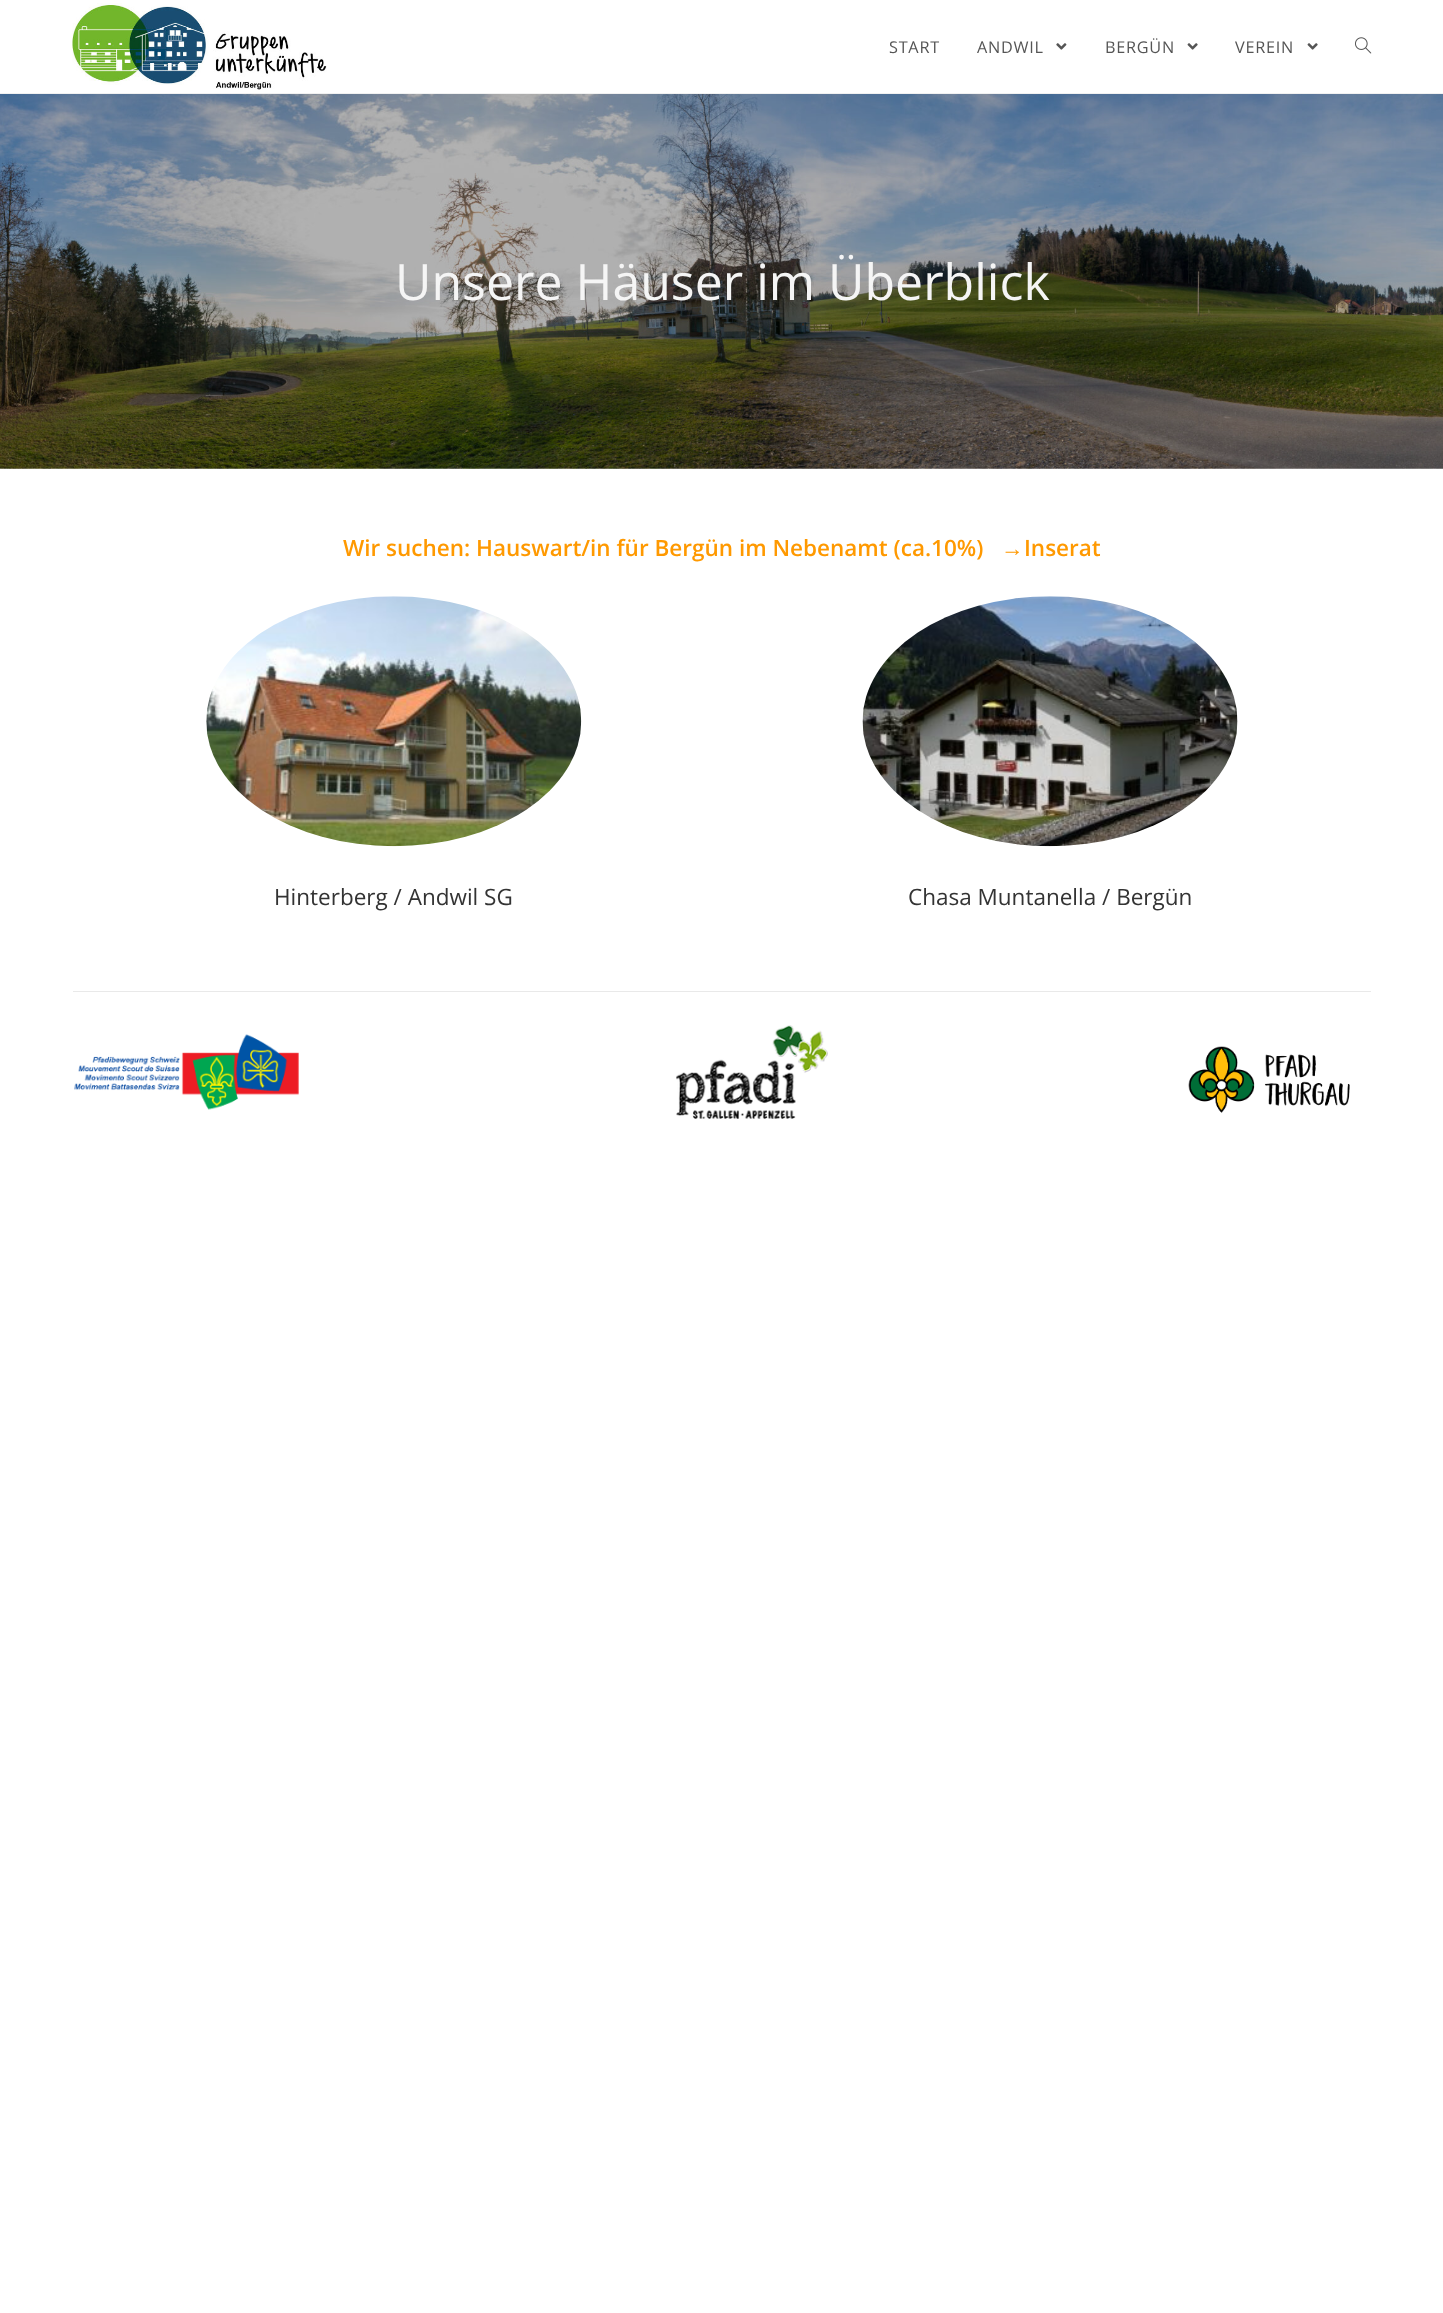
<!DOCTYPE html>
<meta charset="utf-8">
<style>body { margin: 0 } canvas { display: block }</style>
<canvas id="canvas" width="1443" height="2313"></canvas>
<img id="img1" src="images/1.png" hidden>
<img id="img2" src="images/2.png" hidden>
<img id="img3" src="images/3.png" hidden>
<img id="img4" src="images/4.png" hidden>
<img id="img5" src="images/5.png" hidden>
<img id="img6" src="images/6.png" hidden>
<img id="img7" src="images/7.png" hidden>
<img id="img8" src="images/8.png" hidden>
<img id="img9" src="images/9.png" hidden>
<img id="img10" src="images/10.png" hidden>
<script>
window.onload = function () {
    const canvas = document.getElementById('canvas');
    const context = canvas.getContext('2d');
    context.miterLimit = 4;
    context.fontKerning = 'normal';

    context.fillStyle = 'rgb(255, 255, 255)';
    context.fillRect(0, 0, 1443, 2313);
    context.fillStyle = 'rgb(241, 241, 241)';
    context.fillRect(0, 93, 1443, 1);
    context.drawImage(document.getElementById('img1'), 72, 3, 255, 87);
    context.drawImage(document.getElementById('img2'), 1056, 43, 11, 7);
    context.drawImage(document.getElementById('img3'), 1187, 43, 11, 7);
    context.drawImage(document.getElementById('img3'), 1307, 43, 11, 7);
    context.drawImage(document.getElementById('img4'), 1355, 37, 17, 17);
    context.drawImage(document.getElementById('img5'), 0, 94, 1443, 375);
    context.drawImage(document.getElementById('img6'), 206, 596, 376, 251);
    context.drawImage(document.getElementById('img7'), 862, 596, 376, 251);
    context.fillStyle = 'rgb(233, 233, 233)';
    context.fillRect(73, 991, 1298, 1);
    context.drawImage(document.getElementById('img8'), 74, 1034, 225, 76);
    context.drawImage(document.getElementById('img9'), 676, 1025, 152, 94);
    context.drawImage(document.getElementById('img10'), 1188, 1046, 162, 67);
    context.letterSpacing = '0.75px';
    context.font = '16.25px Open Sans';
    context.fillStyle = 'rgb(85, 85, 85)';
    context.fillText('START', 889, 53);
    context.fillText('ANDWIL', 977, 53);
    context.fillText('BERGÜN', 1105, 53);
    context.fillText('VEREIN', 1235, 53);
    context.letterSpacing = '0px';
    context.font = '50px Open Sans';
    context.fillStyle = 'rgb(245, 245, 245)';
    context.fillText('Unsere Häuser im Überblick', 395, 300);
    context.font = '600 22.5px Open Sans';
    context.fillStyle = 'rgb(255, 153, 0)';
    context.fillText('Wir suchen: Hauswart/in für Bergün im Nebenamt (ca.10%)', 343, 556);
    context.font = 'bold 22.5px Liberation Sans';
    context.fillText('→', 1001, 556);
    context.font = '600 22.5px Open Sans';
    context.fillText('Inserat', 1024, 556);
    context.font = '22.5px Open Sans';
    context.fillStyle = 'rgb(51, 51, 51)';
    context.fillText('Hinterberg / Andwil SG', 274, 905);
    context.fillText('Chasa Muntanella / Bergün', 908, 905);
};
</script>
